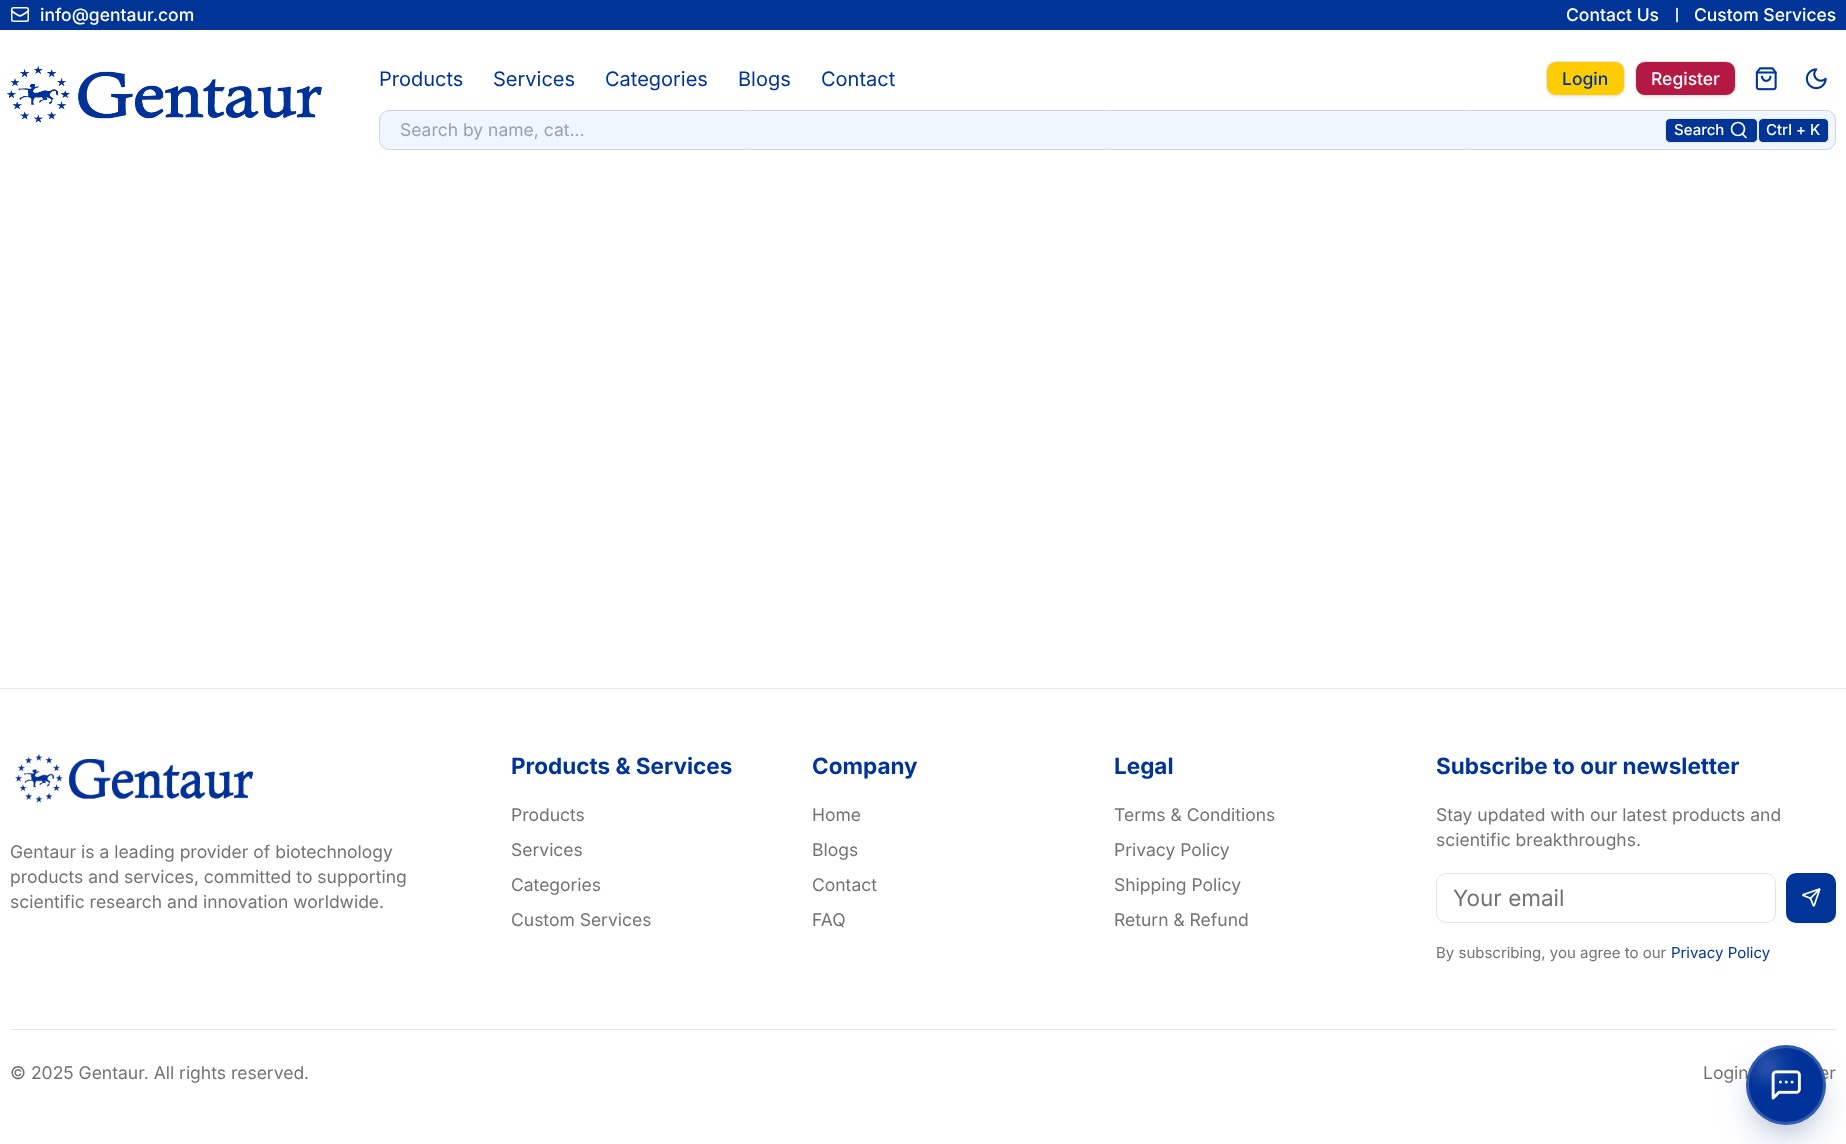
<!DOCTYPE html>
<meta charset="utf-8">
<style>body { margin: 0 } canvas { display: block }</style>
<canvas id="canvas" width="1846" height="1144"></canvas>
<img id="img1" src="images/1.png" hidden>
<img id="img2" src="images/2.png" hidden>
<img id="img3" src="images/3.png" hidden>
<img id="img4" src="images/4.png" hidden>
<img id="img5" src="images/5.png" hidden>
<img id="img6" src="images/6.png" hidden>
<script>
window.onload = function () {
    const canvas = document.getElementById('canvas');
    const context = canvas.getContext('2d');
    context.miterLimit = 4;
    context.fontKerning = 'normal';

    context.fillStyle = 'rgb(255, 255, 255)';
    context.fillRect(0, 0, 1846, 1144);
    context.fillStyle = 'rgb(0, 53, 151)';
    context.fillRect(0, 0, 1846, 30);
    context.beginPath();
    context.moveTo(28.5, 11);
    context.bezierCurveTo(18, 17.5, 22, 17.5, 11.5, 11);
    context.strokeStyle = 'rgb(255, 255, 255)';
    context.lineWidth = 1.7;
    context.lineCap = 'round';
    context.lineJoin = 'round';
    context.stroke();
    context.beginPath();
    context.roundRect(11.75, 7.75, 16.5, 13.5, 1.75);
    context.lineWidth = 1.5;
    context.lineJoin = 'miter';
    context.stroke();
    context.beginPath();
    context.moveTo(1677, 8.5);
    context.lineTo(1677, 21.5);
    context.lineWidth = 1.7;
    context.lineJoin = 'round';
    context.stroke();
    context.drawImage(document.getElementById('img1'), 7, 66, 315, 57);
    context.fillStyle = 'rgba(0, 0, 0, 0.05)';
    context.filter = 'blur(1px)';
    context.beginPath();
    context.roundRect(1546, 63, 79, 35, 10);
    context.fill();
    context.filter = 'none';
    context.fillStyle = 'rgb(255, 204, 1)';
    context.beginPath();
    context.roundRect(1546.5, 61.5, 78, 34, 9.5);
    context.fill();
    context.strokeStyle = 'rgb(229, 229, 229)';
    context.lineWidth = 1;
    context.lineJoin = 'miter';
    context.stroke();
    context.fillStyle = 'rgba(0, 0, 0, 0.05)';
    context.filter = 'blur(1px)';
    context.beginPath();
    context.roundRect(1635, 63, 101, 35, 10);
    context.fill();
    context.filter = 'none';
    context.fillStyle = 'rgb(179, 25, 66)';
    context.beginPath();
    context.roundRect(1635.5, 61.5, 100, 34, 9.5);
    context.fill();
    context.stroke();
    context.drawImage(document.getElementById('img2'), 1755, 67, 22, 24);
    context.drawImage(document.getElementById('img3'), 1805, 68, 22, 22);
    context.fillStyle = 'rgb(239, 246, 255)';
    context.beginPath();
    context.roundRect(379.5, 110.5, 1456, 39, 9.5);
    context.fill();
    context.strokeStyle = 'rgb(209, 213, 220)';
    context.stroke();
    context.fillStyle = 'rgb(0, 53, 151)';
    context.beginPath();
    context.roundRect(1665.5, 118.5, 92, 24, 4.5);
    context.fill();
    context.strokeStyle = 'rgb(229, 229, 229)';
    context.stroke();
    context.beginPath();
    context.moveTo(1746, 137.5);
    context.lineTo(1742.5, 134);
    context.strokeStyle = 'rgb(255, 255, 255)';
    context.lineWidth = 1.7;
    context.lineJoin = 'round';
    context.stroke();
    context.beginPath();
    context.arc(1738, 129, 6.5, 0, 2 * Math.PI);
    context.stroke();
    context.beginPath();
    context.roundRect(1758.5, 118.5, 70, 24, 4.5);
    context.fill();
    context.strokeStyle = 'rgb(229, 229, 229)';
    context.lineWidth = 1;
    context.lineJoin = 'miter';
    context.stroke();
    context.fillStyle = 'rgb(229, 229, 229)';
    context.fillRect(0, 688, 1846, 1);
    context.drawImage(document.getElementById('img4'), 15, 754, 239, 49);
    context.beginPath();
    context.roundRect(1436.5, 873.5, 339, 49, 9.5);
    context.stroke();
    context.fillStyle = 'rgba(0, 0, 0, 0.05)';
    context.filter = 'blur(1px)';
    context.beginPath();
    context.roundRect(1786, 874, 50, 50, 10);
    context.fill();
    context.filter = 'none';
    context.fillStyle = 'rgb(0, 53, 151)';
    context.beginPath();
    context.roundRect(1786, 873, 50, 50, 10);
    context.fill();
    context.drawImage(document.getElementById('img5'), 1802, 888, 19, 19);
    context.fillStyle = 'rgb(229, 231, 235)';
    context.fillRect(10, 1029, 1826, 1);
    context.fillStyle = 'rgba(0, 0, 0, 0.1)';
    context.filter = 'blur(10px)';
    context.beginPath();
    context.roundRect(1751, 1060, 70, 70, 35);
    context.fill();
    context.filter = 'none';
    context.fillStyle = 'rgba(0, 50, 153, 0.25)';
    context.filter = 'blur(20px)';
    context.beginPath();
    context.roundRect(1756, 1075, 60, 60, 30);
    context.fill();
    context.filter = 'none';
    context.font = '500 17.5px Inter';
    context.fillStyle = 'rgb(255, 255, 255)';
    context.fillText('info@gentaur.com', 40, 21);
    context.fillText('Contact Us', 1566, 21);
    context.fillText('Custom Services', 1694, 21);
    context.font = '20px Inter';
    context.fillStyle = 'rgb(0, 53, 151)';
    context.fillText('Products', 379, 86);
    context.fillText('Services', 493, 86);
    context.fillText('Categories', 605, 86);
    context.fillText('Blogs', 738, 86);
    context.fillText('Contact', 821, 86);
    context.font = '500 17.5px Inter';
    context.fillText('Login', 1562, 85);
    context.fillStyle = 'rgb(255, 255, 255)';
    context.fillText('Register', 1651, 85);
    context.font = '17.5px Inter';
    context.fillStyle = 'rgb(153, 161, 175)';
    context.fillText('Search by name, cat...', 400, 136);
    context.font = '500 15px Inter';
    context.fillStyle = 'rgb(255, 255, 255)';
    context.fillText('Search', 1674, 135);
    context.fillText('Ctrl + K', 1766, 135);
    context.font = '17.5px Inter';
    context.fillStyle = 'rgb(115, 115, 115)';
    context.fillText('Gentaur is a leading provider of biotechnology', 10, 858);
    context.fillText('products and services, committed to supporting', 10, 883);
    context.fillText('scientific research and innovation worldwide.', 10, 908);
    context.font = 'bold 22.5px Inter';
    context.fillStyle = 'rgb(0, 53, 151)';
    context.fillText('Products & Services', 511, 774);
    context.font = '17.5px Inter';
    context.fillStyle = 'rgb(115, 115, 115)';
    context.fillText('Products', 511, 821);
    context.fillText('Services', 511, 856);
    context.fillText('Categories', 511, 891);
    context.fillText('Custom Services', 511, 926);
    context.font = 'bold 22.5px Inter';
    context.fillStyle = 'rgb(0, 53, 151)';
    context.fillText('Company', 812, 774);
    context.font = '17.5px Inter';
    context.fillStyle = 'rgb(115, 115, 115)';
    context.fillText('Home', 812, 821);
    context.fillText('Blogs', 812, 856);
    context.fillText('Contact', 812, 891);
    context.fillText('FAQ', 812, 926);
    context.font = 'bold 22.5px Inter';
    context.fillStyle = 'rgb(0, 53, 151)';
    context.fillText('Legal', 1114, 774);
    context.font = '17.5px Inter';
    context.fillStyle = 'rgb(115, 115, 115)';
    context.fillText('Terms & Conditions', 1114, 821);
    context.fillText('Privacy Policy', 1114, 856);
    context.fillText('Shipping Policy', 1114, 891);
    context.fillText('Return & Refund', 1114, 926);
    context.font = 'bold 22.5px Inter';
    context.fillStyle = 'rgb(0, 53, 151)';
    context.fillText('Subscribe to our newsletter', 1436, 774);
    context.font = '17.5px Inter';
    context.fillStyle = 'rgb(115, 115, 115)';
    context.fillText('Stay updated with our latest products and', 1436, 821);
    context.fillText('scientific breakthroughs.', 1436, 846);
    context.font = '22.5px Inter';
    context.fillText('Your email', 1453, 906);
    context.font = '15px Inter';
    context.fillText('By subscribing, you agree to our', 1436, 958);
    context.fillStyle = 'rgb(0, 53, 151)';
    context.fillText('Privacy Policy', 1671, 958);
    context.font = '17.5px Inter';
    context.fillStyle = 'rgb(115, 115, 115)';
    context.fillText('© 2025 Gentaur. All rights reserved.', 10, 1079);
    context.fillText('Login', 1703, 1079);
    context.fillText('er', 1819, 1079);
    context.fillStyle = 'rgb(0, 50, 153)';
    context.beginPath();
    context.arc(1786, 1085, 40, 0, 2 * Math.PI);
    context.fill();
    context.beginPath();
    context.arc(1786, 1085, 38.5, 0, 2 * Math.PI);
    context.strokeStyle = 'rgba(255, 255, 255, 0.2)';
    context.lineWidth = 3;
    context.stroke();
    context.save();
    context.beginPath();
    context.roundRect(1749, 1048, 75, 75, 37.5);
    context.clip();
    context.fillStyle = 'rgba(255, 255, 255, 0.3)';
    context.filter = 'blur(10px)';
    context.beginPath();
    context.roundRect(1756, 1055, 23, 23, 11.5);
    context.fill();
    context.filter = 'none';
    context.restore();
    context.drawImage(document.getElementById('img6'), 1771, 1070, 30, 30);
};
</script>
